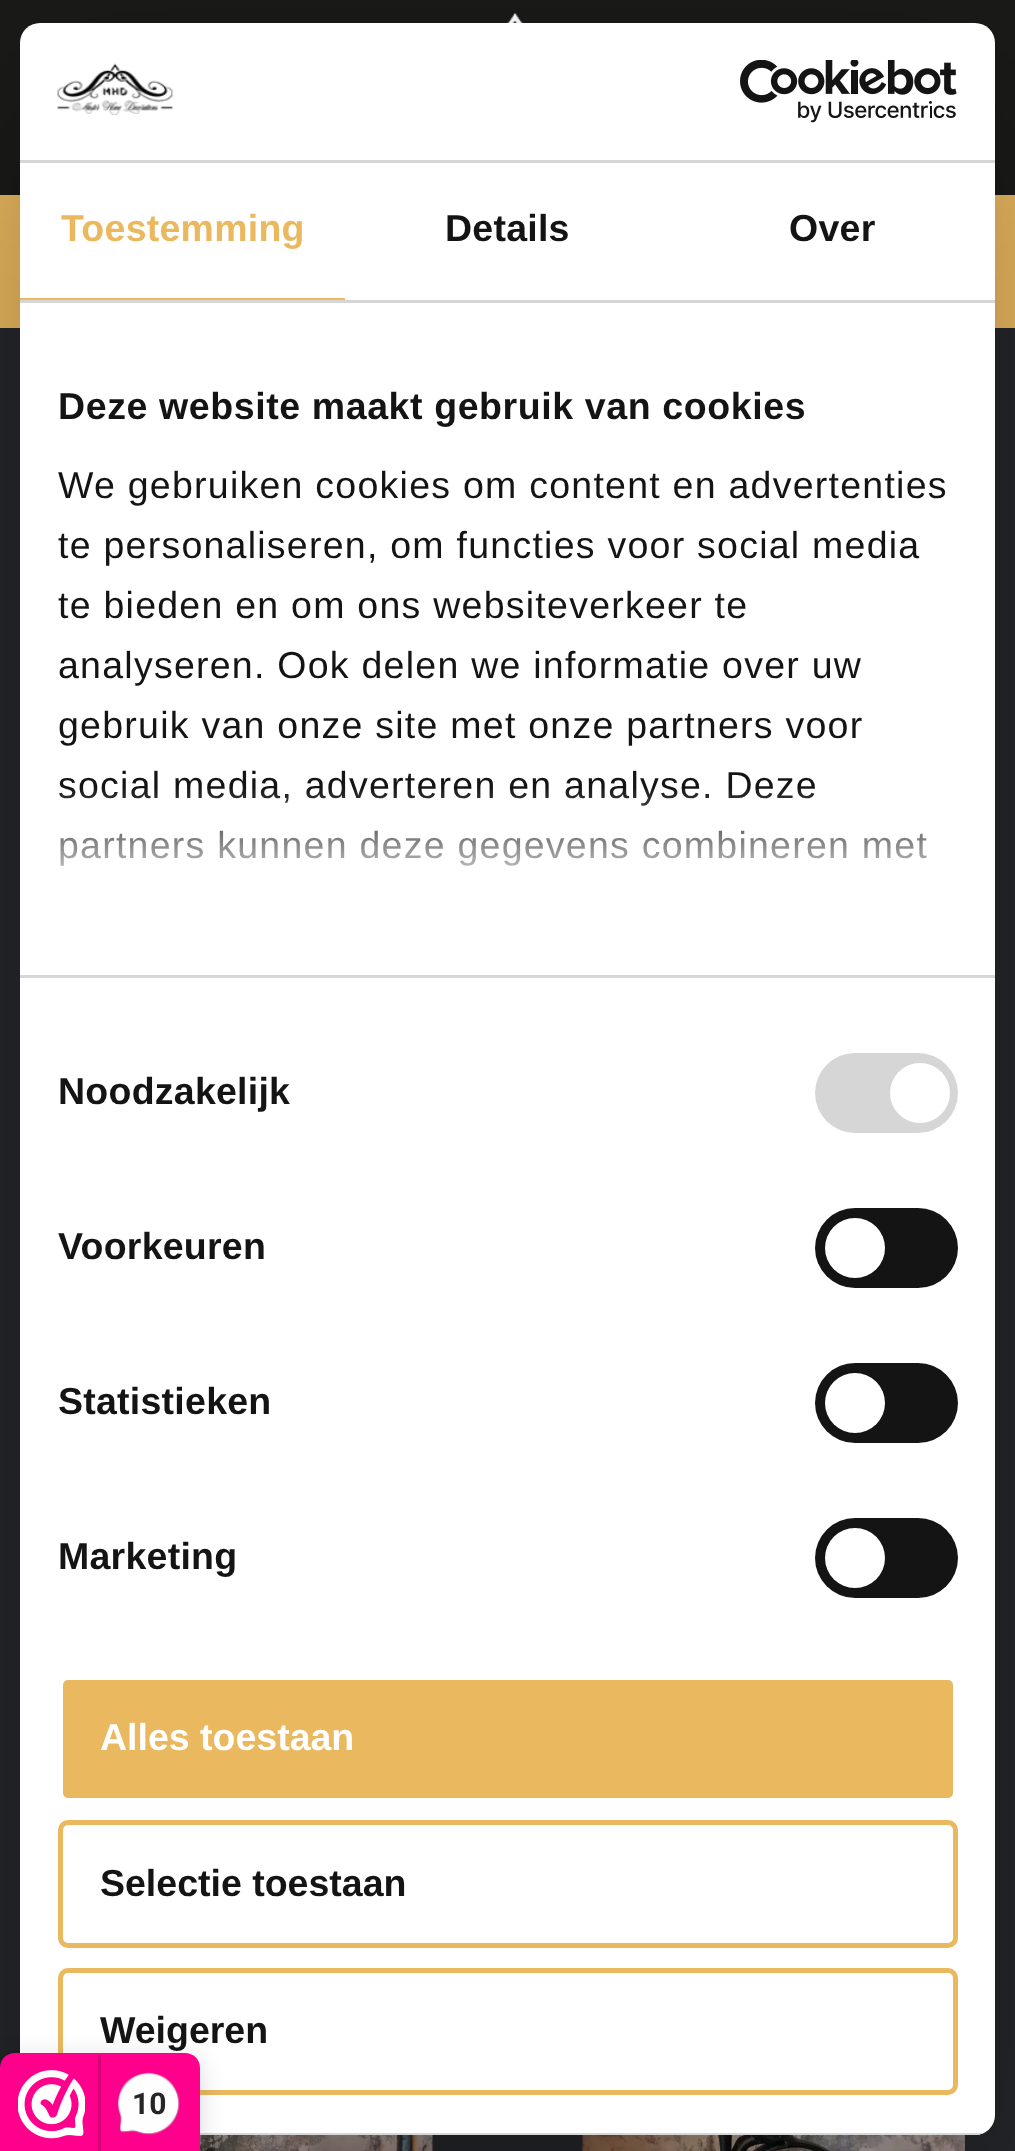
<!DOCTYPE html>
<meta charset="utf-8">
<style>body { margin: 0 } canvas { display: block }</style>
<canvas id="canvas" width="1015" height="2151"></canvas>
<img id="img1" src="images/1.png" hidden>
<img id="img2" src="images/2.png" hidden>
<img id="img3" src="images/3.png" hidden>
<img id="img4" src="images/4.png" hidden>
<img id="img5" src="images/5.png" hidden>
<img id="img6" src="images/6.png" hidden>
<img id="img7" src="images/7.png" hidden>
<script>
window.onload = function () {
    const canvas = document.getElementById('canvas');
    const context = canvas.getContext('2d');
    context.miterLimit = 4;
    context.fontKerning = 'normal';
    let gradient;

    context.fillStyle = 'rgb(38, 39, 43)';
    context.fillRect(0, 0, 1015, 2151);
    context.fillStyle = 'rgb(26, 26, 24)';
    context.fillRect(0, 0, 1015, 195);
    context.drawImage(document.getElementById('img1'), 507, 12, 16, 11);
    context.fillStyle = 'rgb(234, 184, 95)';
    context.fillRect(0, 195, 1015, 133);
    context.drawImage(document.getElementById('img2'), 200, 2135, 233, 16);
    context.drawImage(document.getElementById('img3'), 582, 2135, 383, 16);
    context.save();
    context.beginPath();
    context.moveTo(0, 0);
    context.lineTo(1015, 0);
    context.lineTo(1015, 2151);
    context.lineTo(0, 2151);
    context.closePath();
    context.moveTo(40, 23);
    context.lineTo(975, 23);
    context.bezierCurveTo(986, 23, 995, 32, 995, 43);
    context.lineTo(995, 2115);
    context.bezierCurveTo(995, 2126, 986, 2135, 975, 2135);
    context.lineTo(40, 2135);
    context.bezierCurveTo(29, 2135, 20, 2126, 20, 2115);
    context.lineTo(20, 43);
    context.bezierCurveTo(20, 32, 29, 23, 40, 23);
    context.closePath();
    context.clip('evenodd');
    context.fillStyle = 'rgba(0, 0, 0, 0.3)';
    context.filter = 'blur(85px)';
    context.beginPath();
    context.roundRect(20, 103, 975, 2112, 20);
    context.fill();
    context.filter = 'none';
    context.restore();
    context.fillStyle = 'rgb(255, 255, 255)';
    context.beginPath();
    context.roundRect(20, 23, 975, 2112, 20);
    context.fill();
    context.fillStyle = 'rgb(214, 214, 214)';
    context.fillRect(20, 160, 975, 3);
    context.drawImage(document.getElementById('img4'), 57, 63, 116, 53);
    context.drawImage(document.getElementById('img5'), 740, 60, 217, 63);
    context.fillRect(20, 300, 975, 3);
    context.fillStyle = 'rgb(234, 184, 95)';
    context.fillRect(20, 298, 325, 2);
    context.fillStyle = 'rgb(214, 214, 214)';
    context.fillRect(20, 975, 975, 3);
    context.beginPath();
    context.roundRect(815, 1053, 143, 80, 40);
    context.fill();
    context.fillStyle = 'rgb(255, 255, 255)';
    context.beginPath();
    context.arc(920, 1093, 30, 0, 2 * Math.PI);
    context.fill();
    context.fillStyle = 'rgb(20, 20, 20)';
    context.beginPath();
    context.roundRect(815, 1208, 143, 80, 40);
    context.fill();
    context.fillStyle = 'rgb(255, 255, 255)';
    context.beginPath();
    context.arc(855, 1248, 30, 0, 2 * Math.PI);
    context.fill();
    context.fillStyle = 'rgb(20, 20, 20)';
    context.beginPath();
    context.roundRect(815, 1363, 143, 80, 40);
    context.fill();
    context.fillStyle = 'rgb(255, 255, 255)';
    context.beginPath();
    context.arc(855, 1403, 30, 0, 2 * Math.PI);
    context.fill();
    context.fillStyle = 'rgb(20, 20, 20)';
    context.beginPath();
    context.roundRect(815, 1518, 143, 80, 40);
    context.fill();
    context.fillStyle = 'rgb(255, 255, 255)';
    context.beginPath();
    context.arc(855, 1558, 30, 0, 2 * Math.PI);
    context.fill();
    context.save();
    context.beginPath();
    context.roundRect(20, 23, 975, 2112, 20);
    context.clip();
    context.fillStyle = 'rgb(214, 214, 214)';
    context.fillRect(200, 2133, 784, 2);
    context.restore();
    context.fillStyle = 'rgb(234, 184, 95)';
    context.beginPath();
    context.roundRect(60.5, 1677.5, 895, 123, 7.5);
    context.fill();
    context.strokeStyle = 'rgb(255, 255, 255)';
    context.lineWidth = 5;
    context.stroke();
    context.beginPath();
    context.roundRect(60.5, 1822.5, 895, 123, 7.5);
    context.strokeStyle = 'rgb(234, 184, 95)';
    context.stroke();
    context.beginPath();
    context.roundRect(60.5, 1970.5, 895, 122, 7.5);
    context.stroke();
    context.fillStyle = 'rgba(0, 0, 0, 0.15)';
    context.filter = 'blur(12.5px)';
    context.beginPath();
    context.roundRect(0, 2058, 200, 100, 15);
    context.fill();
    context.filter = 'none';
    context.fillStyle = 'rgb(254, 0, 140)';
    context.beginPath();
    context.moveTo(15, 2053);
    context.lineTo(185, 2053);
    context.bezierCurveTo(193.5, 2053, 200, 2059.5, 200, 2068);
    context.lineTo(200, 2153);
    context.lineTo(0, 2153);
    context.lineTo(0, 2068);
    context.bezierCurveTo(0, 2059.5, 6.5, 2053, 15, 2053);
    context.closePath();
    context.fill();
    context.drawImage(document.getElementById('img6'), 18, 2070, 67, 69);
    context.fillStyle = 'rgb(216, 0, 119)';
    context.fillRect(98, 2055, 3, 96);
    context.drawImage(document.getElementById('img7'), 117, 2072, 63, 63);
    context.letterSpacing = '0.25px';
    context.font = 'bold 37.5px Liberation Sans';
    context.fillStyle = 'rgb(234, 184, 95)';
    context.fillText('Toestemming', 61, 241);
    context.fillStyle = 'rgb(20, 20, 20)';
    context.fillText('Details', 445, 241);
    context.fillText('Over', 789, 241);
    context.letterSpacing = '0.6px';
    context.fillText('Deze website maakt gebruik van cookies', 58, 419);
    context.letterSpacing = '1.25px';
    context.font = '37.5px Liberation Sans';
    context.fillText('We gebruiken cookies om content en advertenties', 58, 498);
    context.fillText('te personaliseren, om functies voor social media', 58, 558);
    context.fillText('te bieden en om ons websiteverkeer te', 58, 618);
    context.fillText('analyseren. Ook delen we informatie over uw', 58, 678);
    context.fillText('gebruik van onze site met onze partners voor', 58, 738);
    context.fillText('social media, adverteren en analyse. Deze', 58, 798);
    context.fillText('partners kunnen deze gegevens combineren met', 58, 858);
    gradient = context.createLinearGradient(491, 974, 491, 786);
    gradient.addColorStop(0, 'rgb(255, 255, 255)');
    gradient.addColorStop(0.5, 'rgba(255, 255, 255, 0.8)');
    gradient.addColorStop(1, 'rgba(255, 255, 255, 0)');
    context.fillStyle = gradient;
    context.fillRect(58, 789, 869, 77);
    context.letterSpacing = '0.25px';
    context.font = 'bold 37.5px Liberation Sans';
    context.fillStyle = 'rgb(20, 20, 20)';
    context.fillText('Noodzakelijk', 58, 1104);
    context.fillText('Voorkeuren', 58, 1259);
    context.fillText('Statistieken', 58, 1414);
    context.fillText('Marketing', 58, 1569);
    context.letterSpacing = '0px';
    context.fillStyle = 'rgb(255, 255, 255)';
    context.fillText('Alles toestaan', 100, 1750);
    context.fillStyle = 'rgb(20, 20, 20)';
    context.fillText('Selectie toestaan', 100, 1896);
    context.fillText('Weigeren', 100, 2043);
    context.font = 'bold 30px Roboto';
    context.fillStyle = 'rgb(39, 38, 38)';
    context.fillText('10', 132, 2114);
};
</script>
